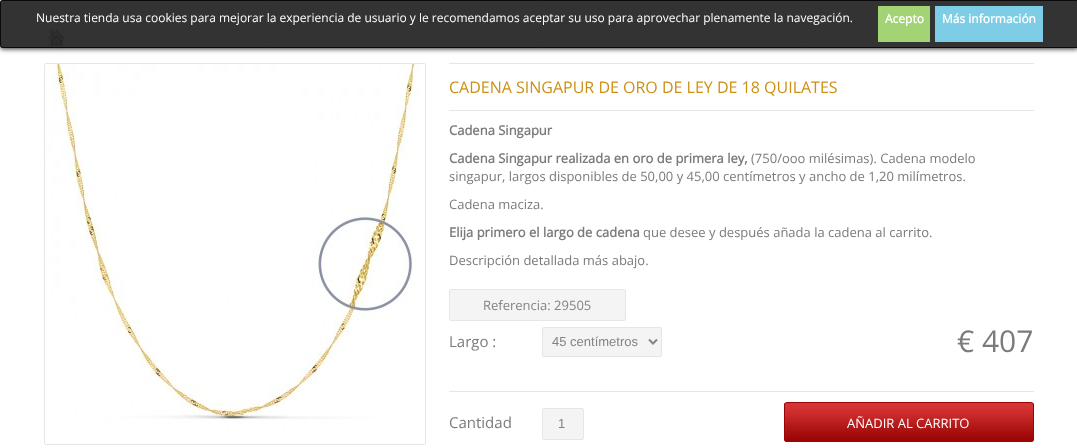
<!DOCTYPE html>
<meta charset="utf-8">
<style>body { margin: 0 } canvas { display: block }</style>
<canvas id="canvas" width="1077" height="448"></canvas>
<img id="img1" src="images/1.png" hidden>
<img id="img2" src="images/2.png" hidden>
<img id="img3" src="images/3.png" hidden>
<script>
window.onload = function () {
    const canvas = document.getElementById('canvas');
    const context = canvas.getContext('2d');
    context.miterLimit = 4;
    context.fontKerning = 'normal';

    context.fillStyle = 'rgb(255, 255, 255)';
    context.fillRect(0, 0, 1077, 448);
    context.drawImage(document.getElementById('img1'), 47, 29, 19, 21);
    context.save();
    context.beginPath();
    context.moveTo(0, 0);
    context.lineTo(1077, 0);
    context.lineTo(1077, 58);
    context.lineTo(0, 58);
    context.closePath();
    context.moveTo(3, 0);
    context.lineTo(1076, 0);
    context.bezierCurveTo(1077.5, 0, 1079, 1.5, 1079, 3);
    context.lineTo(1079, 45);
    context.bezierCurveTo(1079, 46.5, 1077.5, 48, 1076, 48);
    context.lineTo(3, 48);
    context.bezierCurveTo(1.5, 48, 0, 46.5, 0, 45);
    context.lineTo(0, 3);
    context.bezierCurveTo(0, 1.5, 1.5, 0, 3, 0);
    context.closePath();
    context.clip('evenodd');
    context.fillStyle = 'rgba(0, 0, 0, 0.8)';
    context.filter = 'blur(2.5px)';
    context.beginPath();
    context.roundRect(0, 1, 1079, 48, 3);
    context.fill();
    context.filter = 'none';
    context.restore();
    context.fillStyle = 'rgba(0, 0, 0, 0.8)';
    context.beginPath();
    context.roundRect(0, 0, 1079, 48, 3);
    context.fill();
    context.beginPath();
    context.roundRect(0.5, 0.5, 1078, 47, 2.5);
    context.strokeStyle = 'rgba(0, 0, 0, 0.8)';
    context.stroke();
    context.fillStyle = 'rgb(162, 212, 118)';
    context.fillRect(878, 6, 52, 36);
    context.fillStyle = 'rgb(124, 205, 229)';
    context.fillRect(935, 6, 108, 36);
    context.beginPath();
    context.roundRect(44.5, 63.5, 381, 381, 1.5);
    context.strokeStyle = 'rgb(229, 230, 231)';
    context.stroke();
    context.drawImage(document.getElementById('img2'), 45, 64, 380, 380);
    context.fillStyle = 'rgb(229, 230, 231)';
    context.fillRect(449, 63, 585, 1);
    context.fillRect(449, 110, 585, 1);
    context.fillStyle = 'rgb(244, 244, 244)';
    context.beginPath();
    context.roundRect(449.5, 289.5, 176, 31, 1.5);
    context.fill();
    context.stroke();
    context.beginPath();
    context.roundRect(542.5, 327.5, 119, 29, 1.5);
    context.fill();
    context.stroke();
    context.beginPath();
    context.moveTo(649, 339.5);
    context.lineTo(653, 343.5);
    context.lineTo(657, 339.5);
    context.strokeStyle = 'rgb(132, 132, 132)';
    context.lineWidth = 2;
    context.stroke();
    context.fillStyle = 'rgb(229, 230, 231)';
    context.fillRect(449, 391, 585, 1);
    context.fillStyle = 'rgb(244, 244, 244)';
    context.beginPath();
    context.roundRect(542.5, 408.5, 41, 31, 1.5);
    context.fill();
    context.strokeStyle = 'rgb(229, 230, 231)';
    context.lineWidth = 1;
    context.stroke();
    context.drawImage(document.getElementById('img3'), 784, 403, 250, 39);
    context.beginPath();
    context.roundRect(784.5, 402.5, 249, 39, 2.5);
    context.strokeStyle = 'rgb(154, 4, 4)';
    context.stroke();
    context.font = '12px Open Sans';
    context.fillStyle = 'rgb(255, 255, 255)';
    context.fillText('Nuestra tienda usa cookies para mejorar la experiencia de usuario y le recomendamos aceptar su uso para aprovechar plenamente la navegación.', 36, 22);
    context.font = 'bold 12px Open Sans';
    context.fillText('Acepto', 885, 23);
    context.fillText('Más información', 942, 23);
    context.font = '16px Open Sans';
    context.fillStyle = 'rgb(206, 144, 20)';
    context.fillText('CADENA SINGAPUR DE ORO DE LEY DE 18 QUILATES', 449, 93);
    context.font = 'bold 13px Open Sans';
    context.fillStyle = 'rgb(123, 123, 123)';
    context.fillText('Cadena Singapur', 449, 135);
    context.fillText('Cadena Singapur realizada en oro de primera ley,', 449, 163);
    context.font = '13px Open Sans';
    context.fillText('(750/ooo milésimas). Cadena modelo', 751, 163);
    context.fillText('singapur, largos disponibles de 50,00 y 45,00 centímetros y ancho de 1,20 milímetros.', 449, 181);
    context.fillText('Cadena maciza.', 449, 209);
    context.font = 'bold 13px Open Sans';
    context.fillText('Elija primero el largo de cadena', 449, 237);
    context.font = '13px Open Sans';
    context.fillText('que desee y después añada la cadena al carrito.', 643, 237);
    context.fillText('Descripción detallada más abajo.', 449, 265);
    context.fillStyle = 'rgb(132, 132, 132)';
    context.fillText('Referencia: 29505', 483, 310);
    context.font = '15px Open Sans';
    context.fillStyle = 'rgb(123, 123, 123)';
    context.fillText('Largo :', 449, 347);
    context.font = '13px Liberation Sans';
    context.fillStyle = 'rgb(132, 132, 132)';
    context.fillText('45 centímetros', 552, 346);
    context.font = '30px Open Sans';
    context.fillStyle = 'rgb(123, 123, 123)';
    context.fillText('€ 407', 957, 352);
    context.font = '15px Open Sans';
    context.fillText('Cantidad', 449, 428);
    context.font = '13px Liberation Sans';
    context.fillStyle = 'rgb(132, 132, 132)';
    context.fillText('1', 558, 428);
    context.font = '13px Open Sans';
    context.fillStyle = 'rgb(255, 255, 255)';
    context.fillText('AÑADIR AL CARRITO', 847, 428);
};
</script>
